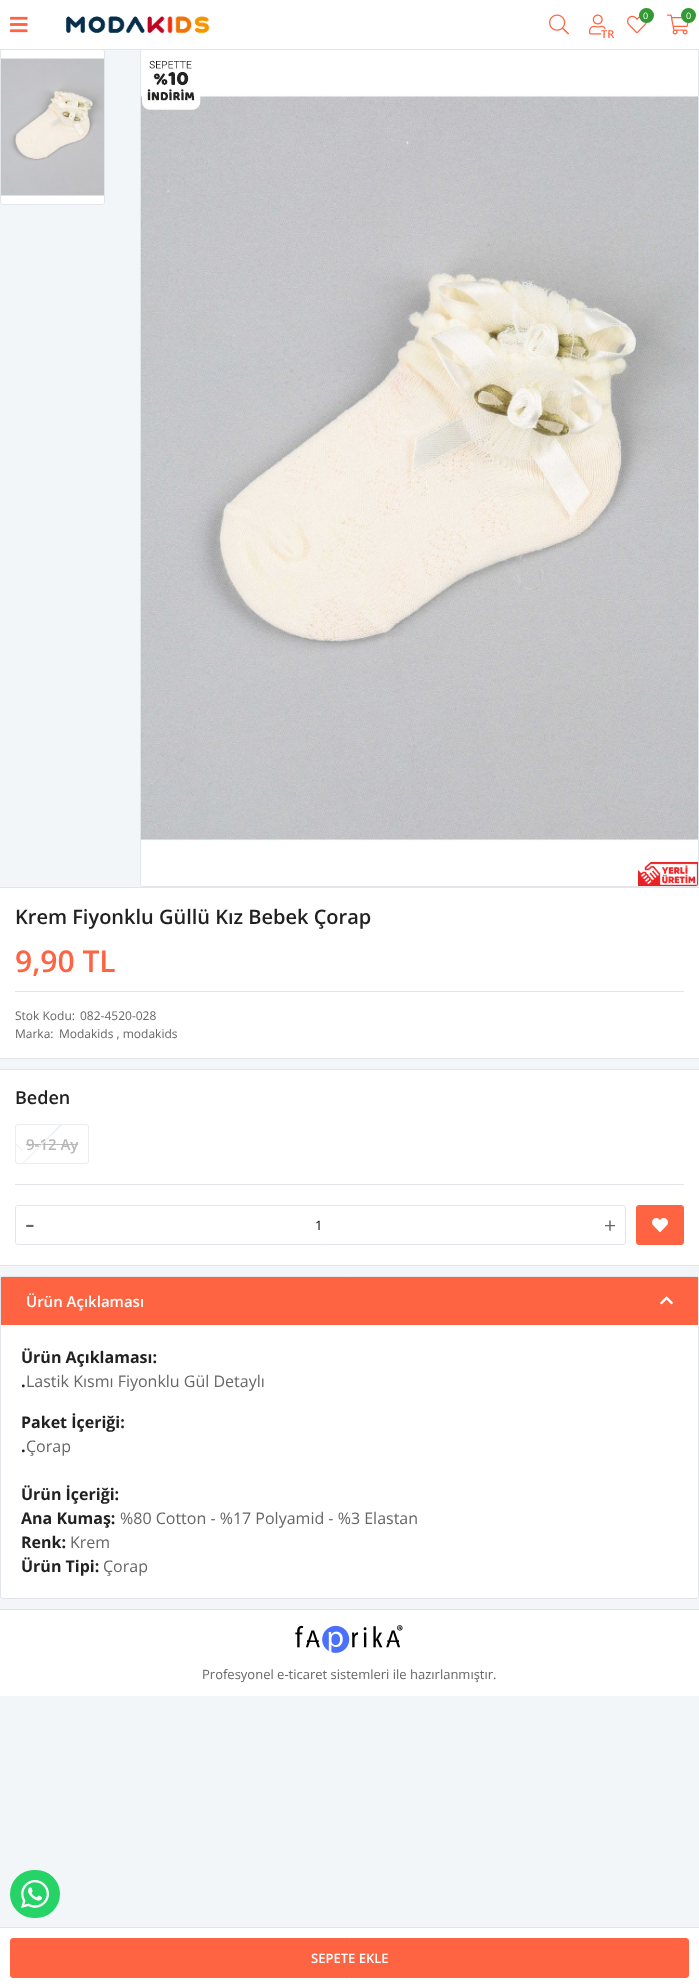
<!DOCTYPE html>
<meta charset="utf-8">
<style>body { margin: 0 } canvas { display: block }</style>
<canvas id="canvas" width="699" height="1988"></canvas>
<img id="img1" src="images/1.png" hidden>
<img id="img2" src="images/2.png" hidden>
<img id="img3" src="images/3.png" hidden>
<img id="img4" src="images/4.png" hidden>
<img id="img5" src="images/5.png" hidden>
<img id="img6" src="images/6.png" hidden>
<img id="img7" src="images/7.png" hidden>
<img id="img8" src="images/8.png" hidden>
<img id="img9" src="images/9.png" hidden>
<img id="img10" src="images/10.png" hidden>
<img id="img11" src="images/11.png" hidden>
<img id="img12" src="images/12.png" hidden>
<img id="img13" src="images/13.png" hidden>
<img id="img14" src="images/14.png" hidden>
<script>
window.onload = function () {
    const canvas = document.getElementById('canvas');
    const context = canvas.getContext('2d');
    context.miterLimit = 4;
    context.fontKerning = 'normal';
    let gradient;

    context.fillStyle = 'rgb(243, 246, 249)';
    context.fillRect(0, 0, 699, 1988);
    context.fillStyle = 'rgb(255, 255, 255)';
    context.fillRect(0, 0, 699, 49);
    context.beginPath();
    context.roundRect(0.5, 49.5, 104, 155, 2.5);
    context.strokeStyle = 'rgb(226, 230, 235)';
    context.stroke();
    context.beginPath();
    context.roundRect(140.5, 49.5, 558, 837, 2.5);
    context.stroke();
    context.fillStyle = 'rgb(226, 230, 235)';
    context.fillRect(0, 49, 699, 1);
    context.drawImage(document.getElementById('img1'), 10, 16, 18, 17);
    context.drawImage(document.getElementById('img2'), 66, 16, 144, 17);
    context.drawImage(document.getElementById('img3'), 549, 14, 20, 21);
    context.drawImage(document.getElementById('img4'), 589, 14, 17, 21);
    context.fillStyle = 'rgb(255, 255, 255)';
    context.beginPath();
    context.arc(608.5, 35.5, 7.5, 0, 2 * Math.PI);
    context.fill();
    context.drawImage(document.getElementById('img5'), 627, 15, 20, 19);
    context.fillStyle = 'rgb(51, 153, 51)';
    context.beginPath();
    context.arc(646.5, 15.5, 7.5, 0, 2 * Math.PI);
    context.fill();
    context.drawImage(document.getElementById('img6'), 667, 14, 22, 21);
    context.beginPath();
    context.arc(688.5, 15.5, 7.5, 0, 2 * Math.PI);
    context.fill();
    context.drawImage(document.getElementById('img7'), 1, 50, 103, 154);
    context.drawImage(document.getElementById('img8'), 141, 50, 557, 836);
    context.drawImage(document.getElementById('img9'), 142, 60, 59, 50);
    context.drawImage(document.getElementById('img10'), 638, 862, 60, 24);
    context.fillStyle = 'rgb(255, 255, 255)';
    context.fillRect(0, 888, 699, 170);
    context.fillStyle = 'rgb(226, 230, 235)';
    context.fillRect(0, 887, 699, 1);
    context.fillRect(0, 1058, 699, 1);
    context.fillRect(15, 991, 669, 1);
    context.fillStyle = 'rgb(255, 255, 255)';
    context.fillRect(0, 1070, 699, 195);
    context.fillStyle = 'rgb(226, 230, 235)';
    context.fillRect(0, 1069, 699, 1);
    context.fillRect(0, 1265, 699, 1);
    context.fillRect(15, 1184, 669, 1);
    context.beginPath();
    context.roundRect(15.5, 1124.5, 73, 39, 2.5);
    context.strokeStyle = 'rgb(235, 238, 241)';
    context.stroke();
    context.fillStyle = 'rgb(235, 238, 241)';
    context.beginPath();
    context.moveTo(16.5, 1144);
    context.lineTo(21.5, 1149);
    context.bezierCurveTo(22.5, 1150, 24.5, 1153, 21.5, 1150.5);
    context.lineTo(16, 1145);
    context.lineTo(16, 1143.5);
    context.closePath();
    context.fill();
    context.fillStyle = 'rgb(184, 184, 184)';
    context.fillRect(26, 1144, 52, 1);
    context.beginPath();
    context.roundRect(15.5, 1205.5, 610, 39, 2.5);
    context.strokeStyle = 'rgb(226, 230, 235)';
    context.stroke();
    context.fillStyle = 'rgb(255, 100, 66)';
    context.beginPath();
    context.roundRect(636.5, 1205.5, 47, 39, 2.5);
    context.fill();
    context.strokeStyle = 'rgb(255, 100, 66)';
    context.stroke();
    context.drawImage(document.getElementById('img11'), 652, 1218, 16, 14);
    context.fillStyle = 'rgb(255, 255, 255)';
    context.fillRect(0, 1928, 699, 60);
    context.fillStyle = 'rgb(226, 230, 235)';
    context.fillRect(0, 1927, 699, 1);
    context.fillStyle = 'rgb(255, 100, 66)';
    context.beginPath();
    context.roundRect(10.5, 1938.5, 678, 39, 2.5);
    context.fill();
    context.stroke();
    context.fillStyle = 'rgb(255, 255, 255)';
    context.beginPath();
    context.roundRect(0.5, 1276.5, 698, 322, 2.5);
    context.fill();
    context.strokeStyle = 'rgb(226, 230, 235)';
    context.stroke();
    context.fillStyle = 'rgb(255, 100, 66)';
    context.fillRect(1, 1277, 697, 48);
    context.drawImage(document.getElementById('img12'), 660, 1296, 13, 9);
    context.fillStyle = 'rgb(255, 255, 255)';
    context.fillRect(0, 1610, 699, 86);
    context.fillStyle = 'rgb(226, 230, 235)';
    context.fillRect(0, 1609, 699, 1);
    context.drawImage(document.getElementById('img13'), 295, 1625, 108, 28);
    context.fillStyle = 'rgb(37, 211, 102)';
    context.beginPath();
    context.roundRect(10, 1870, 50, 48, 24);
    context.fill();
    context.drawImage(document.getElementById('img14'), 21, 1880, 28, 28);
    context.font = '600 11px Open Sans';
    context.fillStyle = 'rgb(255, 100, 66)';
    context.fillText('TR', 601, 38);
    context.font = '9px Open Sans';
    context.fillStyle = 'rgb(255, 255, 255)';
    context.fillText('0', 643, 19);
    context.fillText('0', 686, 19);
    context.font = '600 20px Open Sans';
    context.fillStyle = 'rgb(33, 33, 33)';
    context.fillText('Krem Fiyonklu Güllü Kız Bebek Çorap', 15, 924);
    context.font = '600 30px Open Sans';
    context.fillStyle = 'rgb(255, 100, 66)';
    context.fillText('9,90 TL', 15, 972);
    context.font = '12px Open Sans';
    context.fillStyle = 'rgb(102, 102, 102)';
    context.fillText('Stok Kodu:', 15, 1020);
    context.fillText('082-4520-028', 80, 1020);
    context.fillText('Marka:', 15, 1038);
    context.fillText('Modakids , modakids', 59, 1038);
    context.font = '600 18px Open Sans';
    context.fillStyle = 'rgb(33, 33, 33)';
    context.fillText('Beden', 15, 1104);
    context.font = '600 15px Open Sans';
    context.fillStyle = 'rgb(184, 184, 184)';
    context.fillText('9-12 Ay', 26, 1150);
    context.fillStyle = 'rgb(235, 238, 241)';
    context.beginPath();
    context.moveTo(62, 1125);
    context.lineTo(24, 1163);
    context.lineTo(23, 1163);
    context.lineTo(60, 1125);
    context.closePath();
    context.fill();
    gradient = context.createLinearGradient(42, 1144, 43, 1145);
    gradient.addColorStop(0, 'rgba(235, 238, 241, 0)');
    gradient.addColorStop(0, 'rgb(235, 238, 241)');
    gradient.addColorStop(0.5, 'rgb(235, 238, 241)');
    gradient.addColorStop(0.5, 'rgba(235, 238, 241, 0)');
    context.fillStyle = gradient;
    context.beginPath();
    context.moveTo(62, 1125);
    context.lineTo(24, 1163);
    context.lineTo(23, 1163);
    context.lineTo(60, 1125);
    context.closePath();
    context.fill();
    context.font = '30px Open Sans';
    context.fillStyle = 'rgb(102, 102, 102)';
    context.fillText('-', 25, 1234);
    context.font = '13px Open Sans';
    context.fillStyle = 'rgb(0, 0, 0)';
    context.fillText('1', 315, 1230);
    context.font = '21px Open Sans';
    context.fillStyle = 'rgb(102, 102, 102)';
    context.fillText('+', 604, 1233);
    context.font = '600 13px Open Sans';
    context.fillStyle = 'rgb(255, 255, 255)';
    context.fillText('SEPETE EKLE', 311, 1963);
    context.font = '600 15px Open Sans';
    context.fillText('Ürün Açıklaması', 26, 1307);
    context.font = 'bold 16px Open Sans';
    context.fillStyle = 'rgb(33, 33, 33)';
    context.fillText('Ürün Açıklaması:', 21, 1363);
    context.fillText('.', 21, 1387);
    context.font = '16px Open Sans';
    context.fillStyle = 'rgb(102, 102, 102)';
    context.fillText('Lastik Kısmı Fiyonklu Gül Detaylı', 26, 1387);
    context.font = 'bold 16px Open Sans';
    context.fillStyle = 'rgb(33, 33, 33)';
    context.fillText('Paket İçeriği:', 21, 1428);
    context.fillText('.', 21, 1452);
    context.font = '16px Open Sans';
    context.fillStyle = 'rgb(102, 102, 102)';
    context.fillText('Çorap', 26, 1452);
    context.font = 'bold 16px Open Sans';
    context.fillStyle = 'rgb(33, 33, 33)';
    context.fillText('Ürün İçeriği:', 21, 1500);
    context.fillText('Ana Kumaş:', 21, 1524);
    context.font = '16px Open Sans';
    context.fillStyle = 'rgb(102, 102, 102)';
    context.fillText('%80 Cotton - %17 Polyamid - %3 Elastan', 120, 1524);
    context.font = 'bold 16px Open Sans';
    context.fillStyle = 'rgb(33, 33, 33)';
    context.fillText('Renk:', 21, 1548);
    context.font = '16px Open Sans';
    context.fillStyle = 'rgb(102, 102, 102)';
    context.fillText('Krem', 70, 1548);
    context.font = 'bold 16px Open Sans';
    context.fillStyle = 'rgb(33, 33, 33)';
    context.fillText('Ürün Tipi:', 21, 1572);
    context.font = '16px Open Sans';
    context.fillStyle = 'rgb(102, 102, 102)';
    context.fillText('Çorap', 103, 1572);
    context.font = '13px Open Sans';
    context.fillText('Profesyonel e-ticaret sistemleri ile hazırlanmıştır.', 202, 1679);
};
</script>
